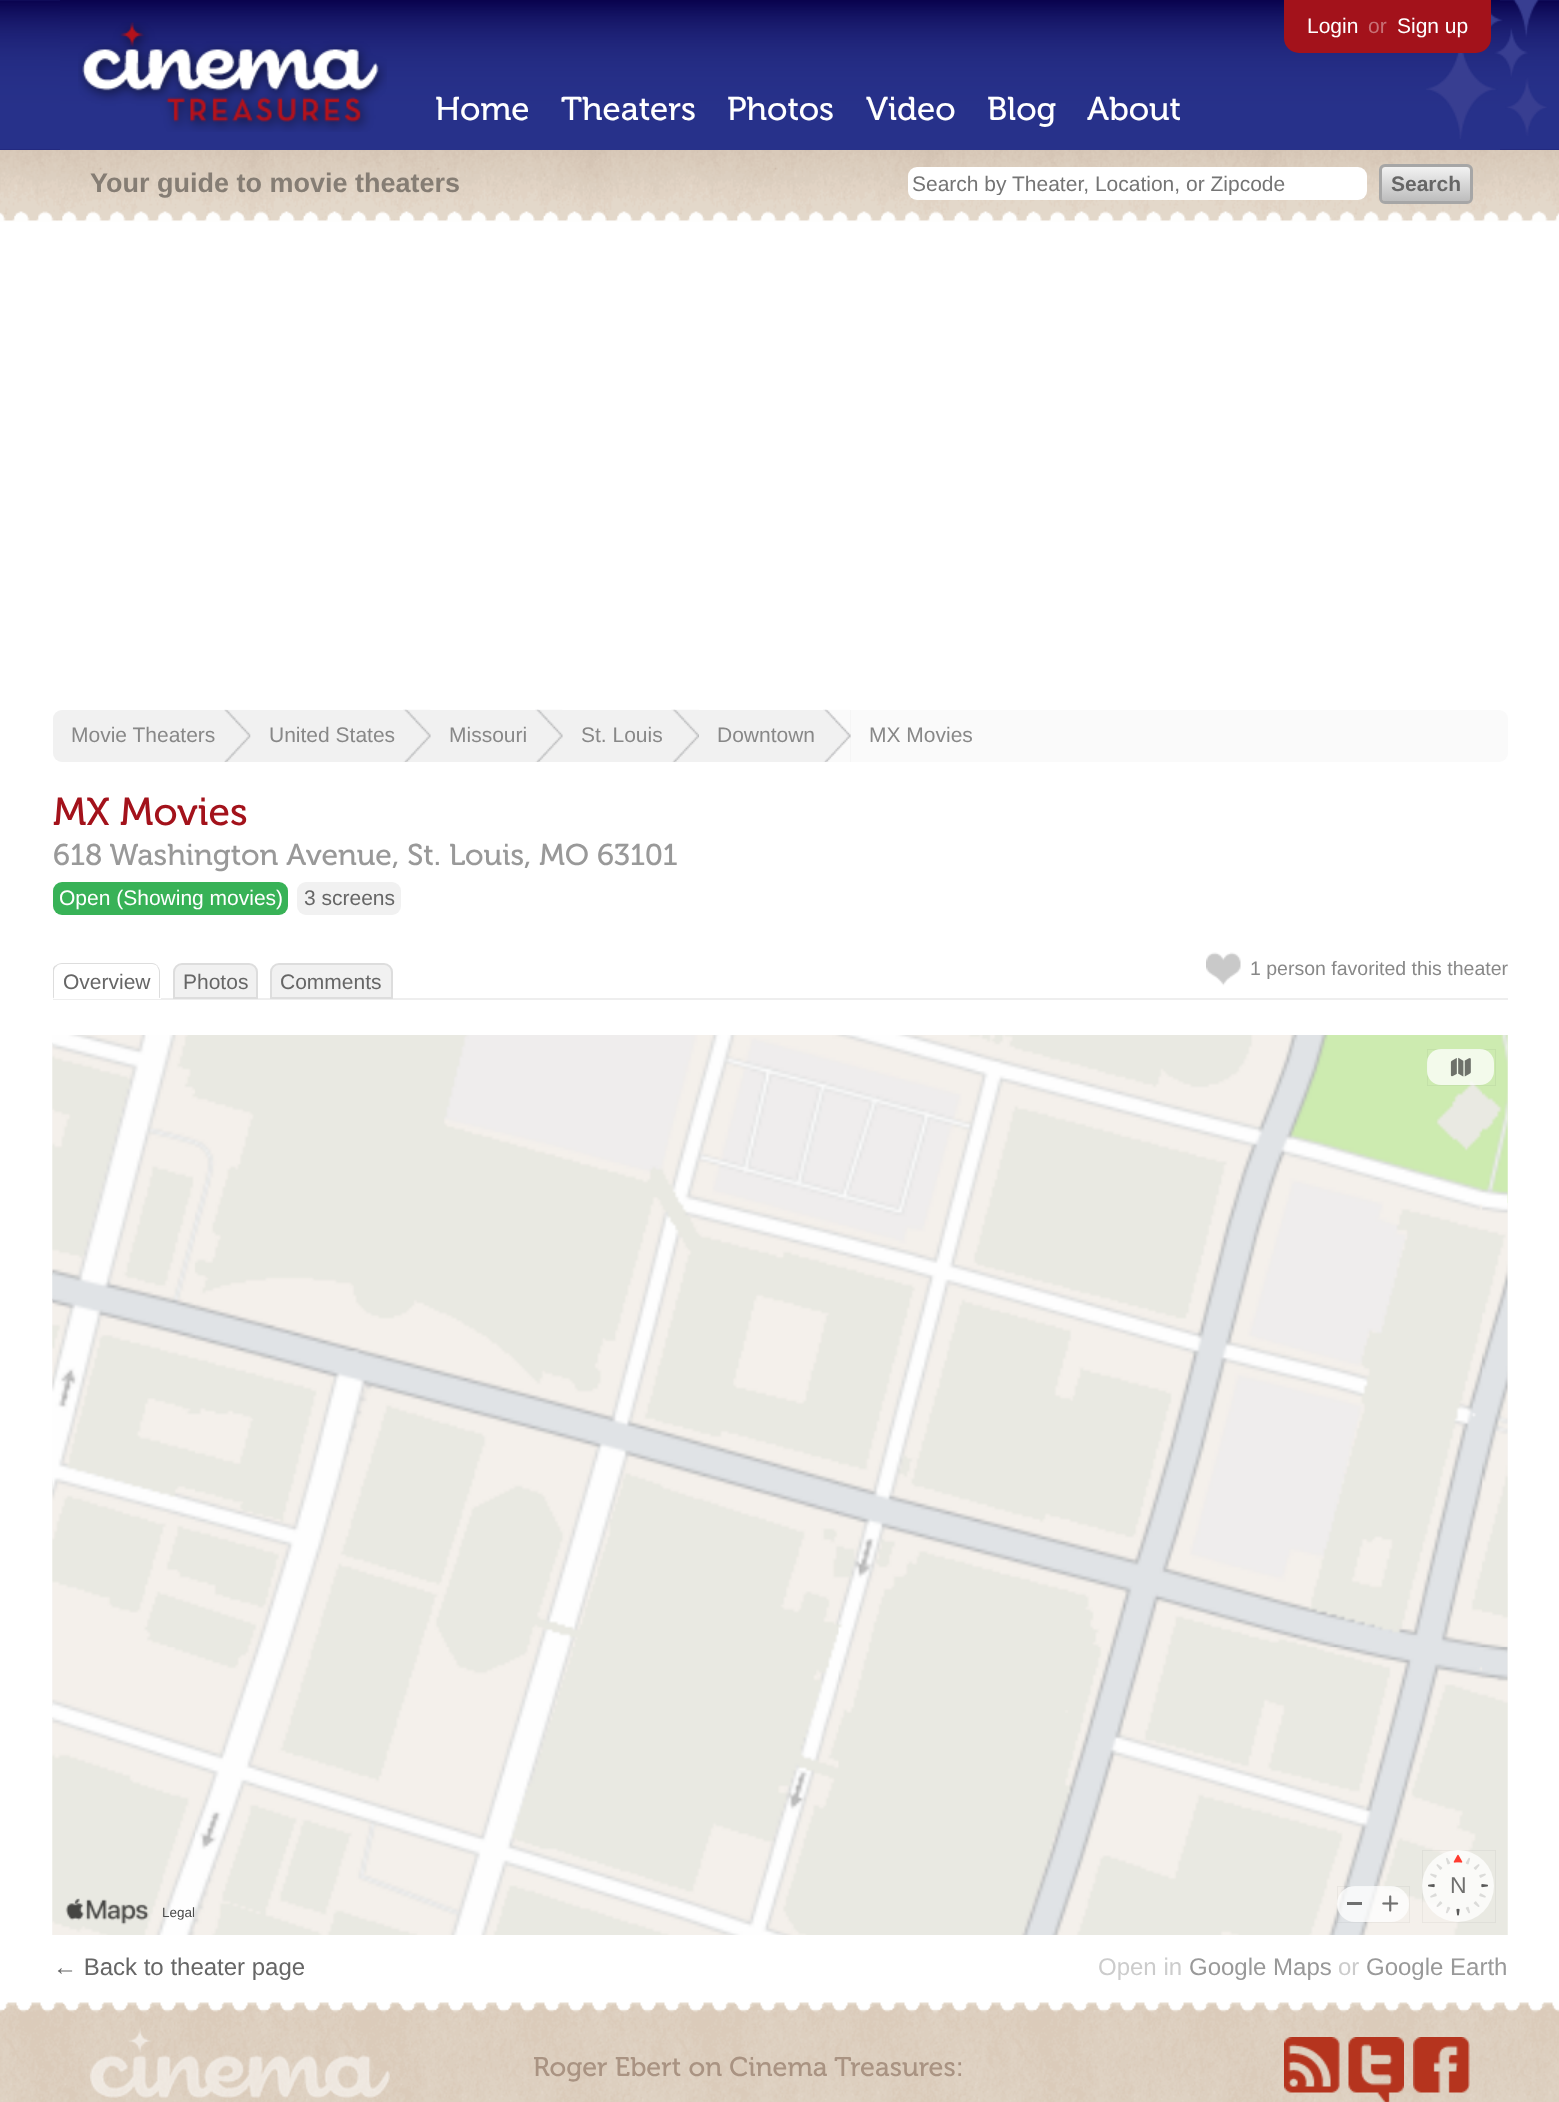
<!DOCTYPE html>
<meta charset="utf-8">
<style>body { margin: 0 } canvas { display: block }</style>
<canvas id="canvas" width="1559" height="2102"></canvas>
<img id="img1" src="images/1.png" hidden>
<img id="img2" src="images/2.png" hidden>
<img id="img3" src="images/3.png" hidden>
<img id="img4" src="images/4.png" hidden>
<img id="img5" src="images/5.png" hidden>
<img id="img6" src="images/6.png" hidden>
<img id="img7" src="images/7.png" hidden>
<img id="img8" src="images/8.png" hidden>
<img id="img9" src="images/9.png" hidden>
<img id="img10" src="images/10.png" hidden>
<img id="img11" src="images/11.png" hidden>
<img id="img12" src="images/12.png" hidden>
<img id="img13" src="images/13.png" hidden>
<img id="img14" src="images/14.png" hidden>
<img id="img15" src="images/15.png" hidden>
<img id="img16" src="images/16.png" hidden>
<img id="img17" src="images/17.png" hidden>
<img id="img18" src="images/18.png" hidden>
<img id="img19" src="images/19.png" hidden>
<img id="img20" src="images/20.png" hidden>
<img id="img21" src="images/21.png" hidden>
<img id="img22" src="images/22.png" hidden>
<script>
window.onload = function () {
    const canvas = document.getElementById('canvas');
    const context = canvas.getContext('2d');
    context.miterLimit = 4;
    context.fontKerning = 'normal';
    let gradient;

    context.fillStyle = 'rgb(255, 255, 255)';
    context.fillRect(0, 0, 1559, 2102);
    context.drawImage(document.getElementById('img1'), 0, 0, 1559, 150);
    context.drawImage(document.getElementById('img2'), 60, 0, 1440, 150);
    context.drawImage(document.getElementById('img3'), 78, 22, 309, 110);
    context.drawImage(document.getElementById('img4'), 1426, 0, 121, 139);
    context.fillStyle = 'rgb(163, 18, 27)';
    context.beginPath();
    context.roundRect(1284, 0, 207, 53, [0, 0, 15, 15]);
    context.fill();
    context.drawImage(document.getElementById('img5'), 0, 150, 1559, 72);
    context.fillStyle = 'rgb(255, 255, 255)';
    context.beginPath();
    context.roundRect(908, 167, 459, 33, 9);
    context.fill();
    gradient = context.createLinearGradient(1426, 167, 1426, 201);
    gradient.addColorStop(0, 'rgb(242, 242, 242)');
    gradient.addColorStop(1, 'rgb(189, 189, 189)');
    context.fillStyle = gradient;
    context.beginPath();
    context.roundRect(1382, 167, 88, 34, 3);
    context.fill();
    context.beginPath();
    context.roundRect(1380.5, 165.5, 91, 37, 4.5);
    context.strokeStyle = 'rgb(166, 166, 166)';
    context.lineWidth = 3;
    context.stroke();
    context.fillStyle = 'rgb(250, 250, 250)';
    context.beginPath();
    context.roundRect(53, 710, 1455, 52, 9);
    context.fill();
    context.fillStyle = 'rgb(241, 241, 241)';
    context.beginPath();
    context.roundRect(53, 710, 198, 52, [9, 0, 0, 9]);
    context.fill();
    context.drawImage(document.getElementById('img6'), 224, 709, 27, 53);
    context.fillRect(251, 710, 600, 52);
    context.drawImage(document.getElementById('img7'), 403, 709, 28, 53);
    context.drawImage(document.getElementById('img8'), 535, 709, 28, 53);
    context.drawImage(document.getElementById('img9'), 671, 709, 28, 53);
    context.drawImage(document.getElementById('img10'), 823, 709, 28, 53);
    context.fillStyle = 'rgb(56, 178, 87)';
    context.beginPath();
    context.roundRect(53, 882, 235, 33, 9);
    context.fill();
    context.fillStyle = 'rgb(241, 241, 241)';
    context.beginPath();
    context.roundRect(297, 882, 104, 33, 9);
    context.fill();
    context.fillStyle = 'rgb(238, 238, 238)';
    context.fillRect(53, 998, 1455, 2);
    context.fillStyle = 'rgb(255, 255, 255)';
    context.beginPath();
    context.roundRect(53, 963, 108, 36, [9, 9, 0, 0]);
    context.fill();
    context.fillStyle = 'rgb(221, 221, 221)';
    context.beginPath();
    context.moveTo(62, 963);
    context.bezierCurveTo(60, 963, 57, 964, 55, 966);
    context.lineTo(56, 967);
    context.bezierCurveTo(57, 965, 59, 964, 62, 964);
    context.lineTo(152, 964);
    context.bezierCurveTo(154, 964, 156, 965, 157, 966);
    context.lineTo(158, 966);
    context.bezierCurveTo(156, 964, 154, 963, 152, 963);
    context.closePath();
    context.fill();
    context.beginPath();
    context.moveTo(157.5, 966);
    context.bezierCurveTo(159, 967.5, 160, 969.5, 160, 972);
    context.lineTo(160, 998.5);
    context.lineTo(159, 997.5);
    context.lineTo(159, 972);
    context.bezierCurveTo(159, 970, 158, 968, 157, 966.5);
    context.closePath();
    context.fill();
    context.fillStyle = 'rgb(255, 255, 255)';
    context.beginPath();
    context.moveTo(52, 999);
    context.lineTo(160, 999);
    context.lineTo(160, 998);
    context.lineTo(159, 998);
    context.lineTo(54, 998);
    context.closePath();
    context.fill();
    context.save();
    context.beginPath();
    context.rect(53, 258, 1455, 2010);
    context.clip();
    context.fillStyle = 'rgb(221, 221, 221)';
    context.beginPath();
    context.moveTo(52.5, 999);
    context.lineTo(52.5, 969.5);
    context.bezierCurveTo(53, 968, 54, 966.5, 55, 965.5);
    context.lineTo(56, 966.5);
    context.bezierCurveTo(54.5, 968, 54, 970, 54, 972);
    context.lineTo(54, 997.5);
    context.closePath();
    context.fill();
    context.restore();
    context.fillStyle = 'rgb(241, 241, 241)';
    context.beginPath();
    context.roundRect(174, 964, 83, 34, [8, 8, 0, 0]);
    context.fill();
    context.strokeStyle = 'rgb(221, 221, 221)';
    context.lineWidth = 2;
    context.stroke();
    context.beginPath();
    context.roundRect(271, 964, 121, 34, [8, 8, 0, 0]);
    context.fill();
    context.stroke();
    context.drawImage(document.getElementById('img11'), 1206, 952, 35, 34);
    context.drawImage(document.getElementById('img12'), 52, 1035, 1456, 900);
    context.drawImage(document.getElementById('img13'), 52, 1035, 1456, 900);
    context.strokeStyle = 'rgba(0, 0, 0, 0.05)';
    context.lineWidth = 0.8;
    context.strokeRect(1427.4, 1049.4, 68.2, 36.2);
    context.fillStyle = 'rgba(255, 255, 255, 0.75)';
    context.beginPath();
    context.roundRect(1427, 1049, 67, 36, 14);
    context.fill();
    context.drawImage(document.getElementById('img14'), 1450, 1057, 21, 20);
    context.strokeRect(1337.4, 1886.4, 72.2, 36.2);
    context.beginPath();
    context.roundRect(1337, 1886, 72, 36, 18);
    context.fill();
    context.fillStyle = 'rgb(111, 112, 112)';
    context.fillRect(1347, 1902, 15, 3);
    context.drawImage(document.getElementById('img15'), 1382, 1895, 17, 17);
    context.strokeRect(1422.4, 1850.4, 73.2, 72.2);
    context.fillStyle = 'rgba(255, 255, 255, 0.75)';
    context.beginPath();
    context.arc(1458, 1886, 36, 0, 2 * Math.PI);
    context.fill();
    context.drawImage(document.getElementById('img16'), 1428, 1854, 60, 62);
    context.drawImage(document.getElementById('img17'), 65, 1898, 84, 27);
    context.drawImage(document.getElementById('img18'), 0, 2002, 1559, 100);
    context.drawImage(document.getElementById('img19'), 90, 2028, 300, 70);
    context.drawImage(document.getElementById('img20'), 1284, 2037, 56, 56);
    context.drawImage(document.getElementById('img21'), 1348, 2037, 56, 65);
    context.drawImage(document.getElementById('img22'), 1413, 2037, 57, 56);
    context.font = '33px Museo';
    context.fillStyle = 'rgb(255, 255, 255)';
    context.fillText('Home', 435, 120);
    context.fillText('Theaters', 561, 120);
    context.fillText('Photos', 727, 120);
    context.fillText('Video', 866, 120);
    context.fillText('Blog', 987, 120);
    context.fillText('About', 1087, 120);
    context.font = '21px Liberation Sans';
    context.fillText('Login', 1307, 33);
    context.fillStyle = 'rgb(200, 113, 118)';
    context.fillText('or', 1368, 33);
    context.fillStyle = 'rgb(255, 255, 255)';
    context.fillText('Sign up', 1397, 33);
    context.font = 'bold 27px Liberation Sans';
    context.fillStyle = 'rgb(133, 125, 116)';
    context.fillText('Your guide to movie theaters', 90, 192);
    context.save();
    context.beginPath();
    context.rect(912, 171, 450, 24);
    context.clip();
    context.font = '21px Liberation Sans';
    context.fillStyle = 'rgb(117, 117, 117)';
    context.fillText('Search by Theater, Location, or Zipcode', 912, 191);
    context.restore();
    context.font = 'bold 21px Liberation Sans';
    context.fillStyle = 'rgb(102, 102, 102)';
    context.fillText('Search', 1391, 191);
    context.font = '21px Liberation Sans';
    context.fillStyle = 'rgb(136, 136, 136)';
    context.fillText('Movie Theaters', 71, 742);
    context.fillText('United States', 269, 742);
    context.fillText('Missouri', 449, 742);
    context.fillText('St. Louis', 581, 742);
    context.fillText('Downtown', 717, 742);
    context.fillText('MX Movies', 869, 742);
    context.font = '39px Museo';
    context.fillStyle = 'rgb(163, 18, 27)';
    context.fillText('MX Movies', 53, 825);
    context.font = '30px Museo';
    context.fillStyle = 'rgb(153, 153, 153)';
    context.fillText('618 Washington Avenue, St. Louis, MO 63101', 53, 865);
    context.font = '21px Liberation Sans';
    context.fillStyle = 'rgb(255, 255, 255)';
    context.fillText('Open (Showing movies)', 59, 905);
    context.fillStyle = 'rgb(102, 102, 102)';
    context.fillText('3 screens', 304, 905);
    context.fillText('Overview', 63, 989);
    context.fillText('Photos', 183, 989);
    context.fillText('Comments', 280, 989);
    context.font = '19.5px Liberation Sans';
    context.fillStyle = 'rgb(136, 136, 136)';
    context.fillText('1 person favorited this theater', 1250, 975);
    context.font = '23px Liberation Sans';
    context.fillStyle = 'rgb(112, 112, 111)';
    context.fillText('N', 1450, 1893);
    context.font = '13.5px Liberation Sans';
    context.fillStyle = 'rgb(75, 75, 75)';
    context.fillText('Legal', 162, 1917);
    context.font = '24px Liberation Sans';
    context.fillStyle = 'rgb(102, 102, 102)';
    context.fillText('← Back to theater page', 53, 1975);
    context.fillStyle = 'rgb(204, 204, 204)';
    context.fillText('Open in', 1098, 1975);
    context.fillStyle = 'rgb(153, 153, 153)';
    context.fillText('Google Maps', 1189, 1975);
    context.fillStyle = 'rgb(204, 204, 204)';
    context.fillText('or', 1338, 1975);
    context.fillStyle = 'rgb(153, 153, 153)';
    context.fillText('Google Earth', 1366, 1975);
    context.font = '27px Museo';
    context.fillStyle = 'rgb(169, 147, 130)';
    context.fillText('Roger Ebert on Cinema Treasures:', 533, 2076);
};
</script>
